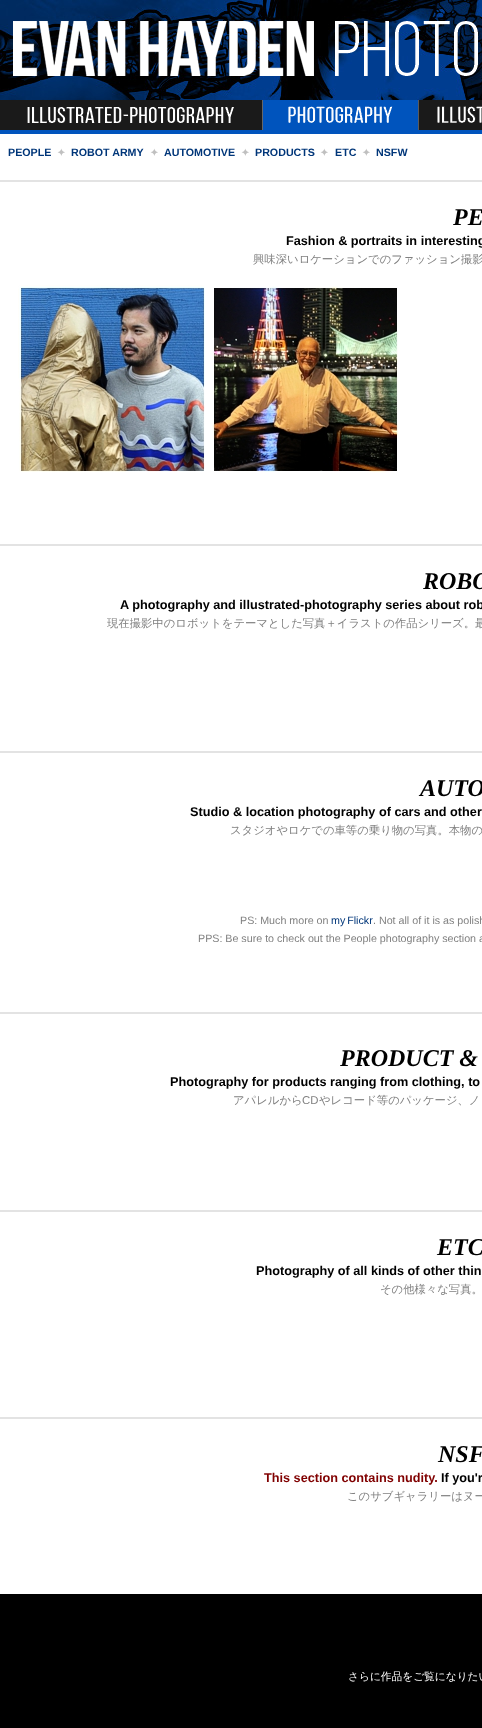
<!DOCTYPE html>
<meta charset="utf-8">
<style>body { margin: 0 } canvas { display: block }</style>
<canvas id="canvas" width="482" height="1728"></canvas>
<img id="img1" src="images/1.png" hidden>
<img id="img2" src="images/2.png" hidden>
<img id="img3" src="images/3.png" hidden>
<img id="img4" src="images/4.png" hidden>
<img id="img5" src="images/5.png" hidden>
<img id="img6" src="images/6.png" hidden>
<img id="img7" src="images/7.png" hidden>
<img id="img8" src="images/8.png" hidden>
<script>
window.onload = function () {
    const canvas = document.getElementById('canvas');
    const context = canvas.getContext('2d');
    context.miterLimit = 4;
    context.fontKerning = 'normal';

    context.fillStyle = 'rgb(0, 0, 0)';
    context.fillRect(0, 0, 482, 1728);
    context.drawImage(document.getElementById('img1'), 0, 0, 482, 100);
    context.drawImage(document.getElementById('img2'), 13, 21, 301, 55);
    context.drawImage(document.getElementById('img3'), 335, 21, 143, 55);
    context.fillStyle = 'rgb(0, 84, 189)';
    context.fillRect(0, 100, 482, 34);
    context.drawImage(document.getElementById('img4'), 0, 100, 262, 30);
    context.drawImage(document.getElementById('img5'), 262, 100, 131, 30);
    context.drawImage(document.getElementById('img6'), 418, 100, 64, 30);
    context.fillStyle = 'rgb(255, 255, 255)';
    context.fillRect(0, 134, 482, 1460);
    context.fillStyle = 'rgb(227, 227, 227)';
    context.fillRect(0, 180, 482, 2);
    context.drawImage(document.getElementById('img7'), 18, 285, 187, 187);
    context.drawImage(document.getElementById('img8'), 212, 286, 187, 187);
    context.fillRect(0, 544, 482, 2);
    context.fillRect(0, 751, 482, 2);
    context.fillRect(0, 1012, 482, 2);
    context.fillRect(0, 1210, 482, 2);
    context.fillRect(0, 1417, 482, 2);
    context.font = 'bold 10.7px Liberation Sans';
    context.fillStyle = 'rgb(0, 54, 121)';
    context.fillText('PEOPLE', 8, 156);
    context.font = 'bold 10px DejaVu Sans';
    context.fillStyle = 'rgb(192, 192, 192)';
    context.fillText('✦', 57, 156);
    context.font = 'bold 10.7px Liberation Sans';
    context.fillStyle = 'rgb(0, 54, 121)';
    context.fillText('ROBOT ARMY', 71, 156);
    context.font = 'bold 10px DejaVu Sans';
    context.fillStyle = 'rgb(192, 192, 192)';
    context.fillText('✦', 150, 156);
    context.font = 'bold 10.7px Liberation Sans';
    context.fillStyle = 'rgb(0, 54, 121)';
    context.fillText('AUTOMOTIVE', 164, 156);
    context.font = 'bold 10px DejaVu Sans';
    context.fillStyle = 'rgb(192, 192, 192)';
    context.fillText('✦', 241, 156);
    context.font = 'bold 10.7px Liberation Sans';
    context.fillStyle = 'rgb(0, 54, 121)';
    context.fillText('PRODUCTS', 255, 156);
    context.font = 'bold 10px DejaVu Sans';
    context.fillStyle = 'rgb(192, 192, 192)';
    context.fillText('✦', 320, 156);
    context.font = 'bold 10.7px Liberation Sans';
    context.fillStyle = 'rgb(0, 54, 121)';
    context.fillText('ETC', 335, 156);
    context.font = 'bold 10px DejaVu Sans';
    context.fillStyle = 'rgb(192, 192, 192)';
    context.fillText('✦', 362, 156);
    context.font = 'bold 10.7px Liberation Sans';
    context.fillStyle = 'rgb(0, 54, 121)';
    context.fillText('NSFW', 376, 156);
    context.font = 'italic bold 24px Liberation Serif';
    context.fillStyle = 'rgb(0, 0, 0)';
    context.fillText('PE', 453, 225);
    context.font = 'bold 12.7px Liberation Sans';
    context.fillText('Fashion & portraits in interesting', 286, 245);
    context.font = '500 11.35px WenQuanYi Zen Hei';
    context.fillStyle = 'rgb(128, 128, 128)';
    context.fillText('興味深いロケーションでのファッション撮影', 253, 263);
    context.font = 'italic bold 24px Liberation Serif';
    context.fillStyle = 'rgb(0, 0, 0)';
    context.fillText('ROBO', 423, 589);
    context.font = 'bold 12.7px Liberation Sans';
    context.fillText('A photography and illustrated-photography series about rob', 120, 609);
    context.font = '500 11.35px WenQuanYi Zen Hei';
    context.fillStyle = 'rgb(128, 128, 128)';
    context.fillText('現在撮影中のロボットをテーマとした写真＋イラストの作品シリーズ。最', 107, 627);
    context.font = 'italic bold 24px Liberation Serif';
    context.fillStyle = 'rgb(0, 0, 0)';
    context.fillText('AUTO', 420, 796);
    context.font = 'bold 12.7px Liberation Sans';
    context.fillText('Studio & location photography of cars and other', 190, 816);
    context.font = '500 11.35px WenQuanYi Zen Hei';
    context.fillStyle = 'rgb(128, 128, 128)';
    context.fillText('スタジオやロケでの車等の乗り物の写真。本物の', 230, 834);
    context.font = '10.7px Liberation Sans';
    context.fillText('PS: Much more on', 240, 924);
    context.wordSpacing = '-1px';
    context.fillStyle = 'rgb(0, 54, 121)';
    context.fillText('my Flickr', 331, 924);
    context.wordSpacing = '0px';
    context.fillStyle = 'rgb(128, 128, 128)';
    context.fillText('. Not all of it is as polish', 373, 924);
    context.fillText('PPS: Be sure to check out the People photography section a', 198, 942);
    context.font = 'italic bold 24px Liberation Serif';
    context.fillStyle = 'rgb(0, 0, 0)';
    context.fillText('PRODUCT &', 340, 1066);
    context.font = 'bold 12.7px Liberation Sans';
    context.fillText('Photography for products ranging from clothing, to', 170, 1086);
    context.font = '500 11.35px WenQuanYi Zen Hei';
    context.fillStyle = 'rgb(128, 128, 128)';
    context.fillText('アパレルから', 233, 1104);
    context.font = '11.35px Liberation Sans';
    context.fillText('CD', 302, 1104);
    context.font = '500 11.35px WenQuanYi Zen Hei';
    context.fillText('やレコード等のパッケージ、ノ', 319, 1104);
    context.font = 'italic bold 24px Liberation Serif';
    context.fillStyle = 'rgb(0, 0, 0)';
    context.fillText('ETC', 437, 1255);
    context.font = 'bold 12.7px Liberation Sans';
    context.fillText('Photography of all kinds of other thin', 256, 1275);
    context.font = '500 11.35px WenQuanYi Zen Hei';
    context.fillStyle = 'rgb(128, 128, 128)';
    context.fillText('その他様々な写真。', 380, 1293);
    context.font = 'italic bold 24px Liberation Serif';
    context.fillStyle = 'rgb(0, 0, 0)';
    context.fillText('NSF', 438, 1462);
    context.font = 'bold 12.7px Liberation Sans';
    context.fillStyle = 'rgb(128, 0, 0)';
    context.fillText('This section contains nudity.', 264, 1482);
    context.fillStyle = 'rgb(0, 0, 0)';
    context.fillText('If you\'r', 441, 1482);
    context.font = '500 11.35px WenQuanYi Zen Hei';
    context.fillStyle = 'rgb(128, 128, 128)';
    context.fillText('このサブギャラリーはヌー', 347, 1500);
    context.font = '500 10.7px WenQuanYi Zen Hei';
    context.fillStyle = 'rgb(255, 255, 255)';
    context.fillText('さらに作品をご覧になりたい', 348, 1680);
};
</script>
